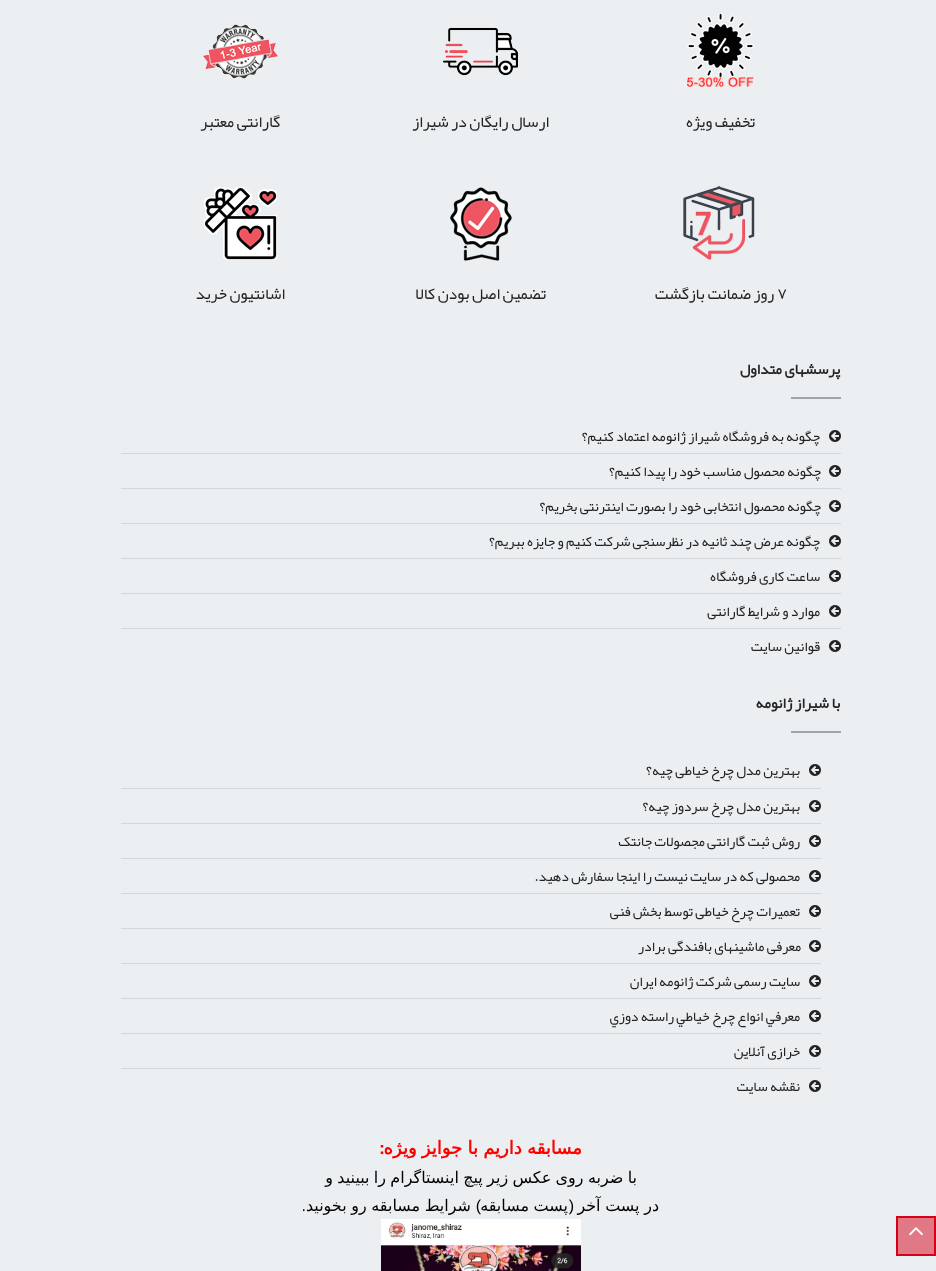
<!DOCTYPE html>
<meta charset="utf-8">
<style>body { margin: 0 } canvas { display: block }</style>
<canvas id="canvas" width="936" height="1271"></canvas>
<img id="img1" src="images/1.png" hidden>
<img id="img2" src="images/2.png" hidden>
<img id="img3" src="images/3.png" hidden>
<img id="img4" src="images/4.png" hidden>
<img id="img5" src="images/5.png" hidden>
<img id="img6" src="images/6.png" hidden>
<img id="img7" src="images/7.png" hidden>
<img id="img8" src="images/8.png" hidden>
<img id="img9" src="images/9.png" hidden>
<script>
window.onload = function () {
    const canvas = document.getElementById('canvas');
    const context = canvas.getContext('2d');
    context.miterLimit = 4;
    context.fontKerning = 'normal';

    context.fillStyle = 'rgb(236, 239, 241)';
    context.fillRect(0, 0, 936, 1271);
    context.drawImage(document.getElementById('img1'), 686, 14, 68, 74);
    context.drawImage(document.getElementById('img2'), 443, 27, 75, 49);
    context.drawImage(document.getElementById('img3'), 203, 24, 75, 55);
    context.drawImage(document.getElementById('img4'), 683, 186, 72, 74);
    context.drawImage(document.getElementById('img5'), 450, 187, 62, 74);
    context.drawImage(document.getElementById('img6'), 204, 187, 73, 73);
    context.fillStyle = 'rgb(163, 164, 165)';
    context.fillRect(791, 397, 50, 2);
    context.drawImage(document.getElementById('img7'), 829, 430, 12, 12);
    context.fillStyle = 'rgb(212, 215, 217)';
    context.fillRect(121, 453, 720, 1);
    context.drawImage(document.getElementById('img7'), 829, 465, 12, 12);
    context.fillRect(121, 488, 720, 1);
    context.drawImage(document.getElementById('img7'), 829, 500, 12, 12);
    context.fillRect(121, 523, 720, 1);
    context.drawImage(document.getElementById('img7'), 829, 535, 12, 12);
    context.fillRect(121, 558, 720, 1);
    context.drawImage(document.getElementById('img7'), 829, 570, 12, 12);
    context.fillRect(121, 593, 720, 1);
    context.drawImage(document.getElementById('img7'), 829, 605, 12, 12);
    context.fillRect(121, 628, 720, 1);
    context.drawImage(document.getElementById('img7'), 829, 640, 12, 12);
    context.fillStyle = 'rgb(163, 164, 165)';
    context.fillRect(791, 731, 50, 2);
    context.drawImage(document.getElementById('img7'), 809, 764, 12, 12);
    context.fillStyle = 'rgb(212, 215, 217)';
    context.fillRect(121, 788, 700, 1);
    context.drawImage(document.getElementById('img7'), 809, 800, 12, 12);
    context.fillRect(121, 823, 700, 1);
    context.drawImage(document.getElementById('img7'), 809, 835, 12, 12);
    context.fillRect(121, 858, 700, 1);
    context.drawImage(document.getElementById('img7'), 809, 870, 12, 12);
    context.fillRect(121, 893, 700, 1);
    context.drawImage(document.getElementById('img7'), 809, 905, 12, 12);
    context.fillRect(121, 928, 700, 1);
    context.drawImage(document.getElementById('img7'), 809, 940, 12, 12);
    context.fillRect(121, 963, 700, 1);
    context.drawImage(document.getElementById('img7'), 809, 975, 12, 12);
    context.fillRect(121, 998, 700, 1);
    context.drawImage(document.getElementById('img7'), 809, 1010, 12, 12);
    context.fillRect(121, 1033, 700, 1);
    context.drawImage(document.getElementById('img7'), 809, 1045, 12, 12);
    context.fillRect(121, 1068, 700, 1);
    context.drawImage(document.getElementById('img7'), 809, 1080, 12, 12);
    context.drawImage(document.getElementById('img8'), 381, 1219, 200, 52);
    context.fillStyle = 'rgb(225, 120, 133)';
    context.beginPath();
    context.rect(897, 1217, 38, 38);
    context.fill();
    context.strokeStyle = 'rgb(216, 0, 24)';
    context.lineWidth = 2;
    context.stroke();
    context.drawImage(document.getElementById('img9'), 909, 1227, 14, 9);
    context.direction = 'rtl';
    context.font = '16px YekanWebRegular';
    context.fillStyle = 'rgb(35, 35, 35)';
    context.fillText('تخفیف ویژه', 755, 127);
    context.fillText('ارسال رایگان در شیراز', 549, 127);
    context.fillText('گارانتی معتبر', 280, 127);
    context.direction = 'ltr';
    context.fillText('۷', 777, 299);
    context.direction = 'rtl';
    context.fillText('روز ضمانت بازگشت', 774, 299);
    context.fillText('تضمین اصل بودن کالا', 546, 299);
    context.fillText('اشانتیون خرید', 285, 299);
    context.font = 'bold 15px YekanWebRegular';
    context.fillText('پرسشهای متداول', 840, 374);
    context.font = '14px YekanWebRegular';
    context.fillText('چگونه به فروشگاه شیراز ژانومه اعتماد کنیم؟', 820, 441);
    context.fillText('چگونه محصول مناسب خود را پیدا کنیم؟', 821, 476);
    context.fillText('چگونه محصول انتخابی خود را بصورت اینترنتی بخریم؟', 821, 511);
    context.fillText('چگونه عرض چند ثانیه در نظرسنجی شرکت کنیم و جایزه ببریم؟', 820, 546);
    context.fillText('ساعت کاری فروشگاه', 820, 581);
    context.fillText('موارد و شرایط گارانتی', 820, 616);
    context.fillText('قوانین سایت', 820, 651);
    context.font = 'bold 15px YekanWebRegular';
    context.fillText('با شیراز ژانومه', 840, 708);
    context.font = '14px YekanWebRegular';
    context.fillText('بهترین مدل چرخ خیاطی چیه؟', 800, 775);
    context.fillText('بهترین مدل چرخ سردوز چیه؟', 800, 811);
    context.fillText('روش ثبت گارانتی مجصولات جانتک', 800, 846);
    context.fillText('محصولی که در سایت نیست را اینجا سفارش دهید.', 800, 881);
    context.fillText('تعمیرات چرخ خیاطی توسط بخش فنی', 800, 916);
    context.fillText('معرفی ماشینهای بافندگی برادر', 801, 951);
    context.fillText('سایت رسمی شرکت ژانومه ایران', 800, 986);
    context.fillText('معرفي انواع چرخ خياطي راسته دوزي', 800, 1021);
    context.fillText('خرازی آنلاین', 800, 1056);
    context.fillText('نقشه سایت', 800, 1091);
    context.wordSpacing = '-0.5px';
    context.font = 'bold 18px DejaVu Sans';
    context.fillStyle = 'rgb(255, 0, 0)';
    context.fillText('مسابقه داریم با جوایز ویژه', 582, 1154);
    context.wordSpacing = '0px';
    context.font = 'bold 18px Liberation Sans';
    context.fillText(':', 385, 1154);
    context.wordSpacing = '-0.75px';
    context.font = '16px DejaVu Sans';
    context.fillStyle = 'rgb(0, 0, 0)';
    context.fillText('با ضربه روی عکس زیر پیچ اینستاگرام را ببینید و', 637, 1183);
    context.wordSpacing = '-0.5px';
    context.fillText('در پست آخر', 659, 1211);
    context.wordSpacing = '0px';
    context.font = '16px Liberation Sans';
    context.fillText('(', 574, 1211);
    context.wordSpacing = '-0.5px';
    context.font = '16px DejaVu Sans';
    context.fillText('پست مسابقه', 568, 1211);
    context.wordSpacing = '0px';
    context.font = '16px Liberation Sans';
    context.fillText(')', 481, 1211);
    context.wordSpacing = '-0.5px';
    context.font = '16px DejaVu Sans';
    context.fillText('شرایط مسابقه رو بخونید', 471, 1211);
    context.wordSpacing = '0px';
    context.font = '16px Liberation Sans';
    context.fillText('.', 306, 1211);
};
</script>
